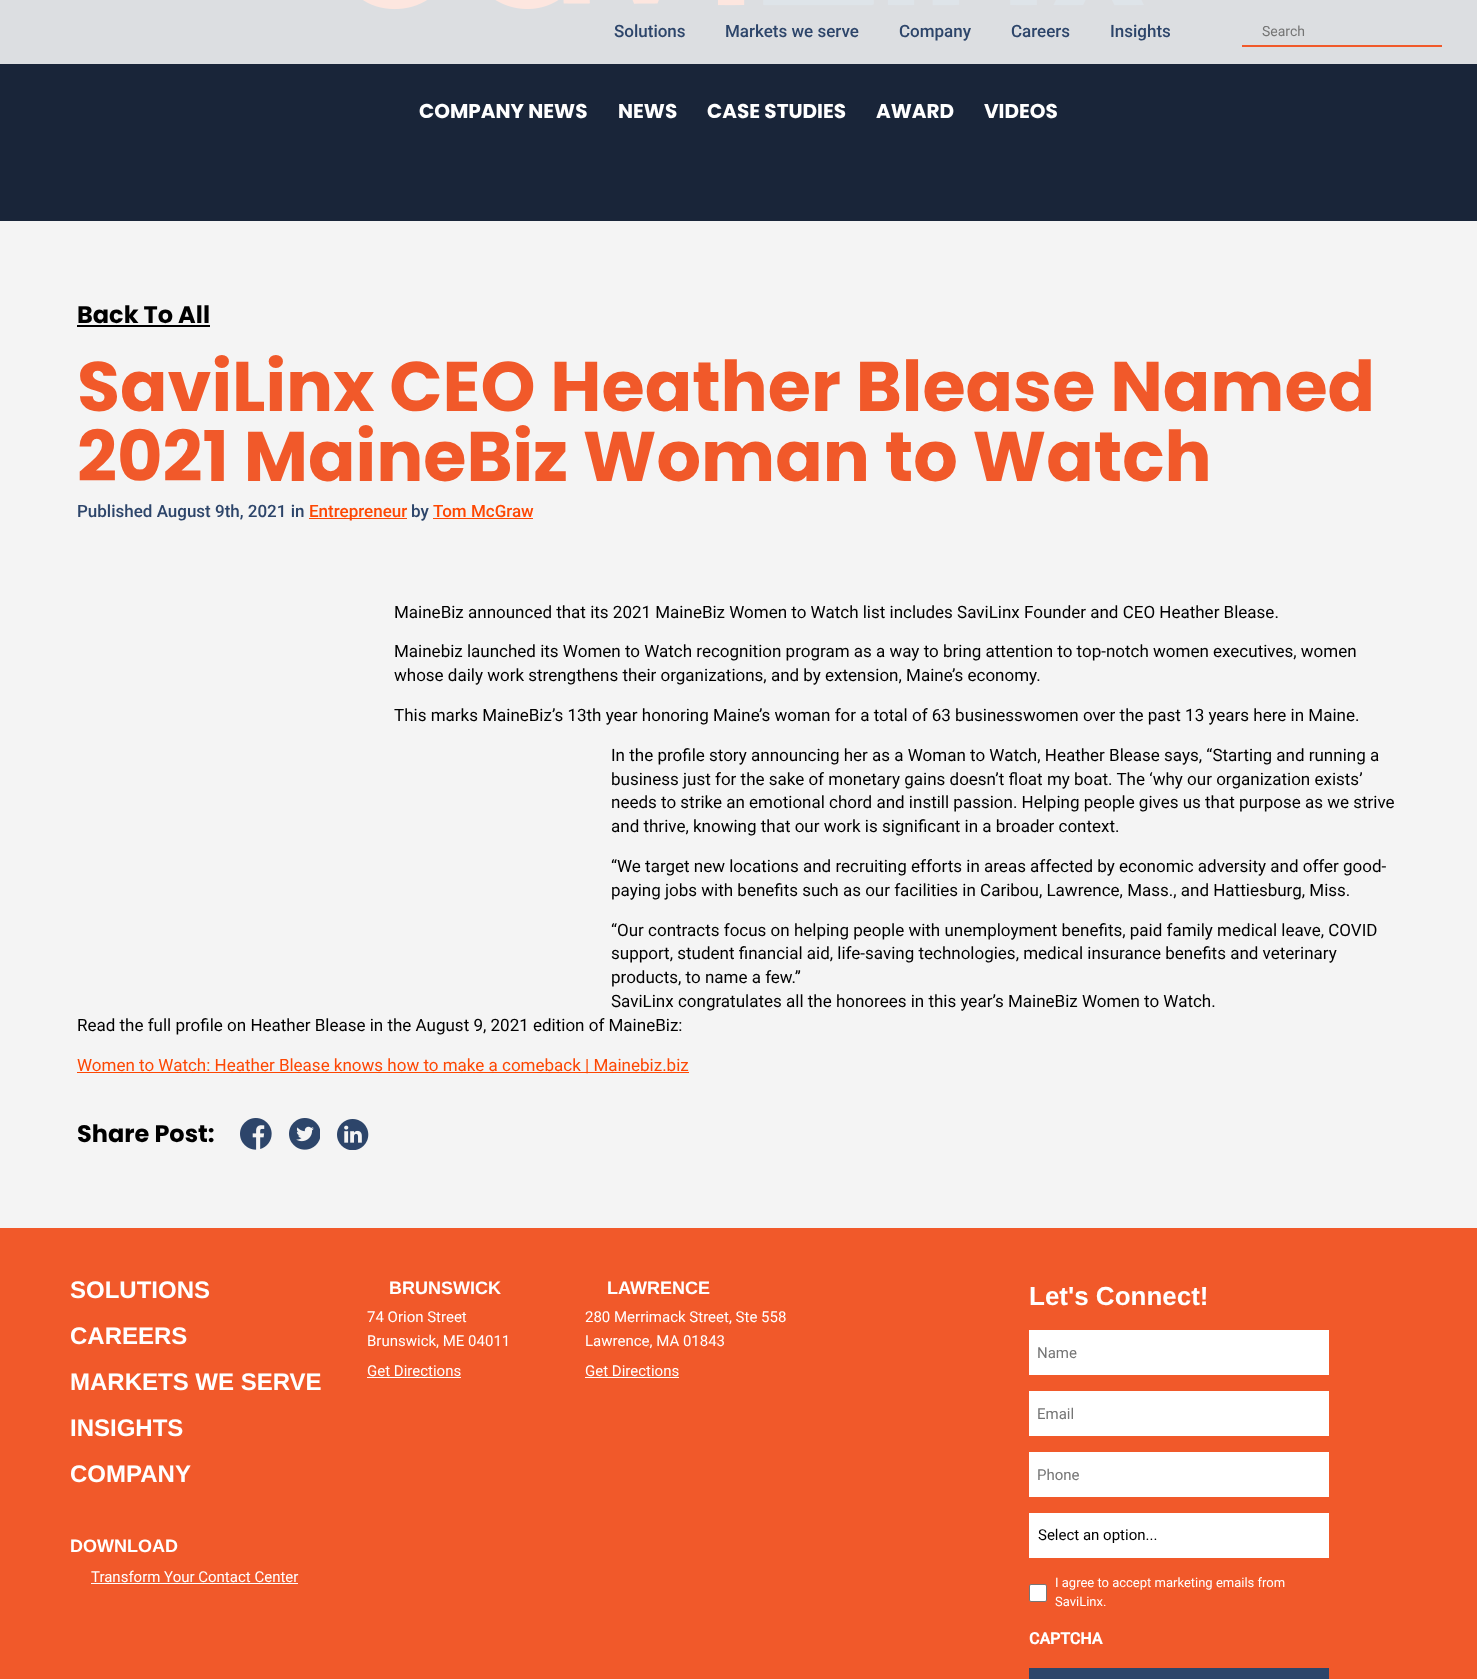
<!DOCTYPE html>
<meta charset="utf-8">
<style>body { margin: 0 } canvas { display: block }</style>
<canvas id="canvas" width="1477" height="1679"></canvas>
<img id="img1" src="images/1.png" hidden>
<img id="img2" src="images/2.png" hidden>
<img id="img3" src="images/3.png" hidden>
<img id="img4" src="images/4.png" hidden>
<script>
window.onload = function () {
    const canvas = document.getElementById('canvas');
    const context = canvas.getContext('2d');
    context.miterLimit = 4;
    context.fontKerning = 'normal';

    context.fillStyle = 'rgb(244, 244, 244)';
    context.fillRect(0, 0, 1477, 1679);
    context.fillStyle = 'rgb(25, 37, 57)';
    context.fillRect(0, 0, 1477, 221);
    context.drawImage(document.getElementById('img1'), 363, 0, 781, 10);
    context.fillStyle = 'rgba(255, 255, 255, 0.85)';
    context.fillRect(0, 0, 1477, 64);
    context.fillStyle = 'rgb(241, 89, 42)';
    context.fillRect(1242, 45, 200, 2);
    context.fillStyle = 'rgb(0, 0, 0)';
    context.fillRect(77, 325, 133, 2);
    context.fillStyle = 'rgb(253, 71, 3)';
    context.fillRect(309, 518, 98, 1);
    context.fillRect(433, 518, 100, 1);
    context.fillRect(77, 1072, 612, 1);
    context.drawImage(document.getElementById('img2'), 240, 1118, 32, 32);
    context.drawImage(document.getElementById('img3'), 289, 1118, 31, 32);
    context.drawImage(document.getElementById('img4'), 337, 1119, 32, 31);
    context.fillStyle = 'rgb(241, 89, 42)';
    context.fillRect(0, 1228, 1477, 451);
    context.fillStyle = 'rgb(255, 255, 255)';
    context.fillRect(91, 1583, 207, 1);
    context.fillRect(367, 1377, 94, 1);
    context.fillRect(585, 1377, 94, 1);
    context.fillRect(1029, 1330, 300, 45);
    context.fillRect(1029, 1391, 300, 45);
    context.fillRect(1029, 1452, 300, 45);
    context.fillRect(1029, 1513, 300, 45);
    context.beginPath();
    context.roundRect(1029.5, 1584.5, 17, 17, 1.5);
    context.fill();
    context.strokeStyle = 'rgb(118, 118, 118)';
    context.stroke();
    context.fillStyle = 'rgb(45, 69, 106)';
    context.fillRect(1029, 1668, 300, 11);
    context.font = '500 17px Roboto';
    context.fillText('Solutions', 614, 37);
    context.fillText('Markets we serve', 725, 37);
    context.fillText('Company', 899, 37);
    context.fillText('Careers', 1011, 37);
    context.fillText('Insights', 1110, 37);
    context.font = '14px Roboto';
    context.fillStyle = 'rgb(117, 117, 117)';
    context.fillText('Search', 1262, 36);
    context.font = 'bold 20px Poppins';
    context.fillStyle = 'rgb(255, 255, 255)';
    context.fillText('COMPANY NEWS', 419, 118);
    context.fillText('NEWS', 618, 118);
    context.fillText('CASE STUDIES', 707, 118);
    context.fillText('AWARD', 876, 118);
    context.fillText('VIDEOS', 984, 118);
    context.font = 'bold 24px Poppins';
    context.fillStyle = 'rgb(0, 0, 0)';
    context.fillText('Back To All', 77, 323);
    context.font = 'bold 70px Poppins';
    context.fillStyle = 'rgb(241, 89, 42)';
    context.fillText('SaviLinx CEO Heather Blease Named', 77, 411);
    context.fillText('2021 MaineBiz Woman to Watch', 77, 481);
    context.font = '500 17px Roboto';
    context.fillStyle = 'rgb(45, 69, 106)';
    context.fillText('Published August 9th, 2021 in', 77, 517);
    context.fillStyle = 'rgb(253, 71, 3)';
    context.fillText('Entrepreneur', 309, 517);
    context.fillStyle = 'rgb(45, 69, 106)';
    context.fillText('by', 411, 517);
    context.fillStyle = 'rgb(253, 71, 3)';
    context.fillText('Tom McGraw', 433, 517);
    context.font = '17px Roboto';
    context.fillStyle = 'rgb(0, 0, 0)';
    context.fillText('MaineBiz announced that its 2021 MaineBiz Women to Watch list includes SaviLinx Founder and CEO Heather Blease.', 394, 618);
    context.fillText('Mainebiz launched its Women to Watch recognition program as a way to bring attention to top-notch women executives, women', 394, 657);
    context.fillText('whose daily work strengthens their organizations, and by extension, Maine’s economy.', 394, 681);
    context.fillText('This marks MaineBiz’s 13th year honoring Maine’s woman for a total of 63 businesswomen over the past 13 years here in Maine.', 394, 721);
    context.fillText('In the profile story announcing her as a Woman to Watch, Heather Blease says, “Starting and running a', 611, 761);
    context.fillText('business just for the sake of monetary gains doesn’t float my boat. The ‘why our organization exists’', 611, 785);
    context.fillText('needs to strike an emotional chord and instill passion. Helping people gives us that purpose as we strive', 611, 808);
    context.fillText('and thrive, knowing that our work is significant in a broader context.', 611, 832);
    context.fillText('“We target new locations and recruiting efforts in areas affected by economic adversity and offer good-', 611, 872);
    context.fillText('paying jobs with benefits such as our facilities in Caribou, Lawrence, Mass., and Hattiesburg, Miss.', 611, 896);
    context.fillText('“Our contracts focus on helping people with unemployment benefits, paid family medical leave, COVID', 611, 936);
    context.fillText('support, student financial aid, life-saving technologies, medical insurance benefits and veterinary', 611, 959);
    context.fillText('products, to name a few.”', 611, 983);
    context.fillText('SaviLinx congratulates all the honorees in this year’s MaineBiz Women to Watch.', 611, 1007);
    context.fillText('Read the full profile on Heather Blease in the August 9, 2021 edition of MaineBiz:', 77, 1031);
    context.fillStyle = 'rgb(253, 71, 3)';
    context.fillText('Women to Watch: Heather Blease knows how to make a comeback | Mainebiz.biz', 77, 1071);
    context.font = 'bold 24px Poppins';
    context.fillStyle = 'rgb(0, 0, 0)';
    context.fillText('Share Post:', 77, 1142);
    context.font = 'bold 24px Arimo';
    context.fillStyle = 'rgb(255, 255, 255)';
    context.fillText('SOLUTIONS', 70, 1298);
    context.fillText('CAREERS', 70, 1344);
    context.fillText('MARKETS WE SERVE', 70, 1390);
    context.fillText('INSIGHTS', 70, 1436);
    context.fillText('COMPANY', 70, 1482);
    context.font = 'bold 18px Arimo';
    context.fillText('DOWNLOAD', 70, 1552);
    context.font = '15px Roboto';
    context.fillText('Transform Your Contact Center', 91, 1582);
    context.font = 'bold 18px Arimo';
    context.fillText('BRUNSWICK', 389, 1294);
    context.font = '15px Roboto';
    context.fillText('74 Orion Street', 367, 1322);
    context.fillText('Brunswick, ME 04011', 367, 1346);
    context.fillText('Get Directions', 367, 1376);
    context.font = 'bold 18px Arimo';
    context.fillText('LAWRENCE', 607, 1294);
    context.font = '15px Roboto';
    context.fillText('280 Merrimack Street, Ste 558', 585, 1322);
    context.fillText('Lawrence, MA 01843', 585, 1346);
    context.fillText('Get Directions', 585, 1376);
    context.font = 'bold 26px Liberation Sans';
    context.fillText('Let\'s Connect!', 1029, 1305);
    context.font = '15px Roboto';
    context.fillStyle = 'rgb(117, 117, 117)';
    context.fillText('Name', 1037, 1358);
    context.fillText('Email', 1037, 1419);
    context.fillText('Phone', 1037, 1480);
    context.fillStyle = 'rgb(0, 0, 0)';
    context.fillText('Select an option...', 1038, 1540);
    context.font = '13px Roboto';
    context.fillStyle = 'rgb(255, 255, 255)';
    context.fillText('I agree to accept marketing emails from', 1055, 1587);
    context.fillText('SaviLinx.', 1055, 1606);
    context.font = 'bold 16px Roboto';
    context.fillText('CAPTCHA', 1029, 1644);
};
</script>
